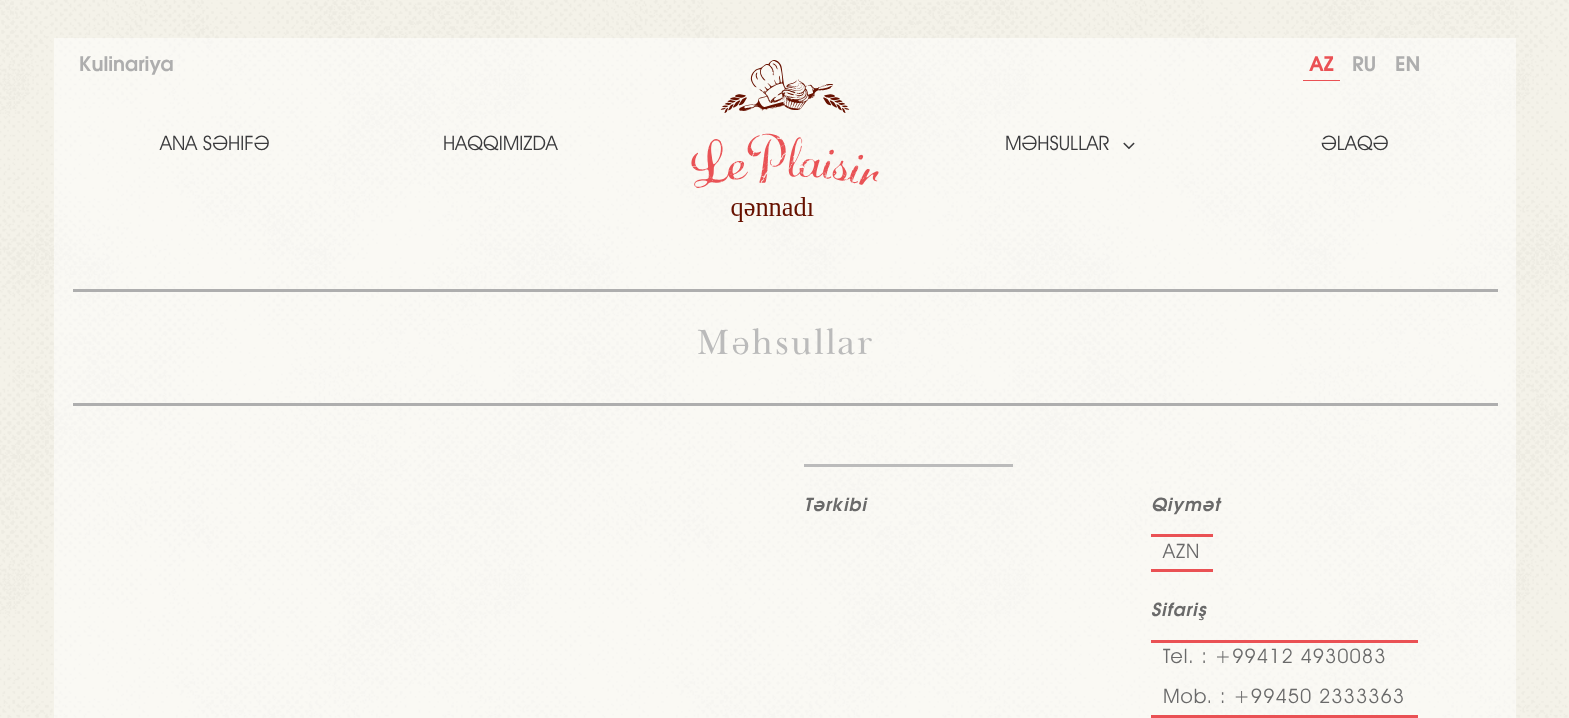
<!DOCTYPE html>
<meta charset="utf-8">
<style>body { margin: 0 } canvas { display: block }</style>
<canvas id="canvas" width="1569" height="718"></canvas>
<img id="img1" src="images/1.png" hidden>
<img id="img2" src="images/2.png" hidden>
<img id="img3" src="images/3.png" hidden>
<script>
window.onload = function () {
    const canvas = document.getElementById('canvas');
    const context = canvas.getContext('2d');
    context.miterLimit = 4;
    context.fontKerning = 'normal';

    context.fillStyle = 'rgb(255, 255, 255)';
    context.fillRect(0, 0, 1569, 718);
    context.drawImage(document.getElementById('img1'), 0, 0, 1569, 718);
    context.fillStyle = 'rgba(255, 255, 255, 0.5)';
    context.fillRect(54, 38, 1462, 251);
    context.fillStyle = 'rgb(234, 81, 84)';
    context.fillRect(1303, 80, 37, 1);
    context.drawImage(document.getElementById('img2'), 691, 60, 188, 162);
    context.drawImage(document.getElementById('img3'), 1123, 142, 12, 8);
    context.fillStyle = 'rgba(255, 255, 255, 0.5)';
    context.fillRect(54, 289, 1462, 429);
    context.fillStyle = 'rgb(174, 174, 174)';
    context.fillRect(73, 289, 1425, 3);
    context.fillRect(73, 403, 1425, 3);
    context.fillStyle = 'rgb(187, 187, 187)';
    context.fillRect(804, 464, 209, 3);
    context.fillStyle = 'rgb(234, 81, 84)';
    context.fillRect(1151, 534, 62, 3);
    context.fillRect(1151, 569, 62, 3);
    context.fillRect(1151, 640, 267, 3);
    context.fillRect(1151, 715, 267, 3);
    context.font = 'bold 20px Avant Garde';
    context.fillStyle = 'rgb(174, 174, 174)';
    context.fillText('Kulinariya', 79, 71);
    context.fillStyle = 'rgb(234, 81, 84)';
    context.fillText('AZ', 1309, 71);
    context.fillStyle = 'rgb(174, 174, 174)';
    context.fillText('RU', 1352, 71);
    context.fillText('EN', 1395, 71);
    context.font = '20px Avant Garde';
    context.fillStyle = 'rgb(58, 58, 60)';
    context.fillText('ANA SƏHIFƏ', 160, 150);
    context.fillText('HAQQIMIZDA', 443, 150);
    context.fillText('MƏHSULLAR', 1005, 150);
    context.fillText('ƏLAQƏ', 1321, 150);
    context.letterSpacing = '1.75px';
    context.font = '36px Baskerville';
    context.fillStyle = 'rgb(187, 187, 187)';
    context.fillText('Məhsullar', 696, 354);
    context.letterSpacing = '1px';
    context.font = 'italic bold 18px Avant Garde';
    context.fillStyle = 'rgb(106, 106, 106)';
    context.fillText('Tərkibi', 804, 511);
    context.fillText('Qiymət', 1151, 511);
    context.font = '20px Avant Garde';
    context.fillText('AZN', 1163, 558);
    context.font = 'italic bold 18px Avant Garde';
    context.fillText('Sifariş', 1151, 616);
    context.font = '20px Avant Garde';
    context.fillText('Tel. : +99412 4930083', 1163, 663);
    context.fillText('Mob. : +99450 2333363', 1163, 703);
};
</script>
